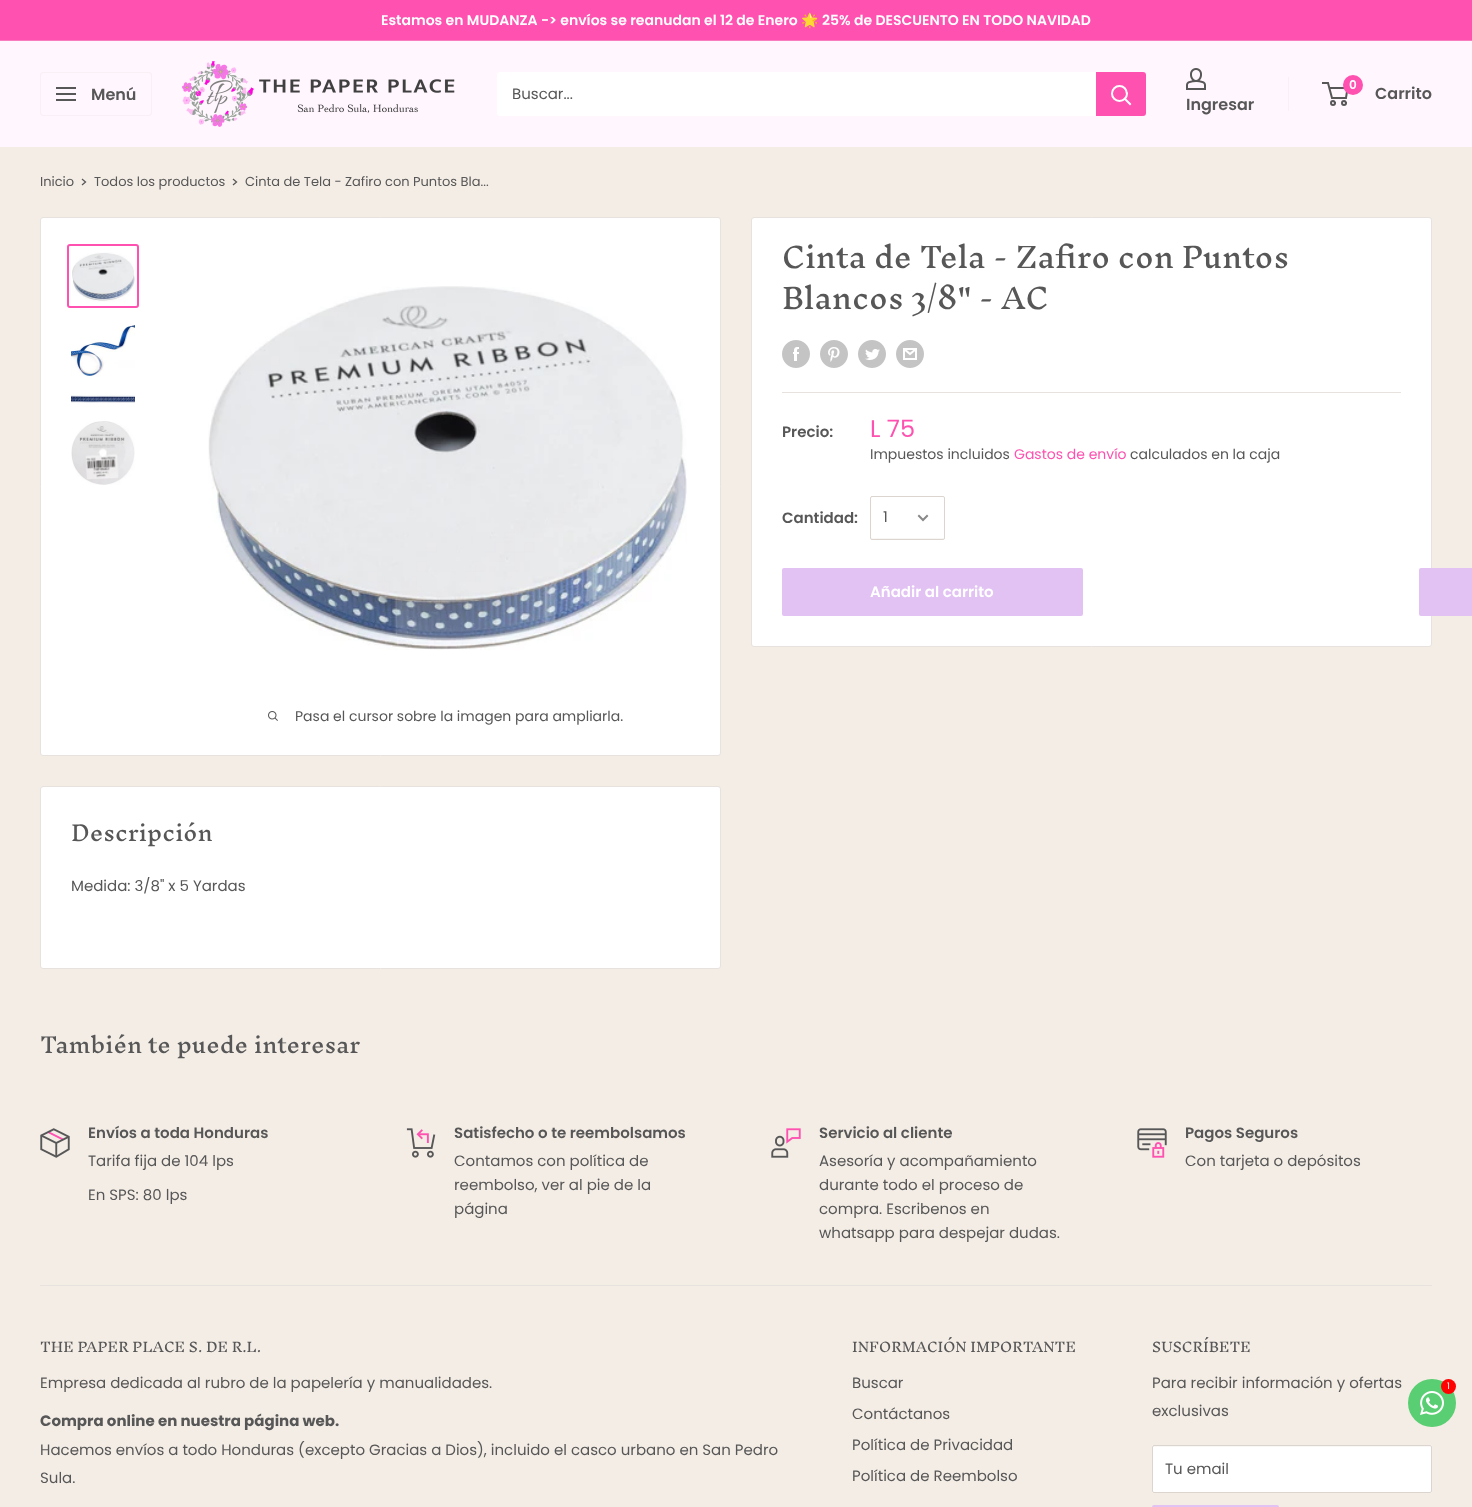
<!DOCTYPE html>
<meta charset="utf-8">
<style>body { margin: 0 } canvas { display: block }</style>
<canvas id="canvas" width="1472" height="1507"></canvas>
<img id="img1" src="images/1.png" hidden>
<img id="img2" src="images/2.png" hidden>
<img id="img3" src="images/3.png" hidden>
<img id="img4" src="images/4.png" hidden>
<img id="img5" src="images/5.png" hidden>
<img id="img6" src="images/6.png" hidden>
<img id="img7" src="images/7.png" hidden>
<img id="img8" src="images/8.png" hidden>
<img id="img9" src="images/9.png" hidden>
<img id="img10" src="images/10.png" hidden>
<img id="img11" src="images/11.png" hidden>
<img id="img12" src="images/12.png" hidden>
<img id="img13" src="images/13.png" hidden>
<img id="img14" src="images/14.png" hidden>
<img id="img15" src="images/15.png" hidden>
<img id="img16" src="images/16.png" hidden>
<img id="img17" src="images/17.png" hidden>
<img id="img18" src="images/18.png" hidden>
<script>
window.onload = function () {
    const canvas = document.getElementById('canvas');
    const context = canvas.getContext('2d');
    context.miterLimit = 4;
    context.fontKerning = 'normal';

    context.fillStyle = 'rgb(244, 237, 230)';
    context.fillRect(0, 0, 1472, 1507);
    context.fillStyle = 'rgb(254, 81, 176)';
    context.fillRect(0, 0, 1472, 40);
    context.fillStyle = 'rgb(248, 125, 190)';
    context.fillRect(0, 40, 1472, 1);
    context.fillStyle = 'rgb(255, 246, 254)';
    context.fillRect(0, 41, 1472, 106);
    context.beginPath();
    context.roundRect(40.5, 72.5, 111, 43, 2.5);
    context.strokeStyle = 'rgb(248, 240, 244)';
    context.stroke();
    context.drawImage(document.getElementById('img1'), 56, 87, 20, 14);
    context.drawImage(document.getElementById('img2'), 182, 61, 273, 66);
    context.fillStyle = 'rgb(255, 255, 255)';
    context.beginPath();
    context.roundRect(497, 72, 649, 44, 3);
    context.fill();
    context.fillStyle = 'rgb(254, 81, 176)';
    context.beginPath();
    context.roundRect(1096, 72, 50, 44, [0, 3, 3, 0]);
    context.fill();
    context.beginPath();
    context.moveTo(1130, 104);
    context.lineTo(1125, 99);
    context.strokeStyle = 'rgb(255, 255, 255)';
    context.lineWidth = 2;
    context.lineCap = 'square';
    context.stroke();
    context.beginPath();
    context.arc(1119.5, 93.5, 7.5, 0, 2 * Math.PI);
    context.stroke();
    context.beginPath();
    context.arc(1333, 103, 2, 0, 2 * Math.PI);
    context.strokeStyle = 'rgb(87, 87, 87)';
    context.stroke();
    context.beginPath();
    context.arc(1344, 103, 2, 0, 2 * Math.PI);
    context.stroke();
    context.beginPath();
    context.moveTo(1329.5, 88);
    context.lineTo(1347.5, 88);
    context.lineTo(1346, 98);
    context.lineTo(1332, 98);
    context.lineTo(1328, 83);
    context.lineTo(1322, 83);
    context.lineCap = 'butt';
    context.stroke();
    context.beginPath();
    context.arc(1353, 85, 10, 0, 2 * Math.PI);
    context.fill();
    context.drawImage(document.getElementById('img3'), 1186, 68, 20, 22);
    context.fillStyle = 'rgb(248, 240, 244)';
    context.fillRect(1288, 77, 1, 34);
    context.beginPath();
    context.moveTo(82.5, 179.5);
    context.lineTo(85.5, 182);
    context.lineTo(82.5, 184.5);
    context.lineWidth = 1.3;
    context.lineCap = 'square';
    context.stroke();
    context.beginPath();
    context.moveTo(233.5, 179.5);
    context.lineTo(236.5, 182);
    context.lineTo(233.5, 184.5);
    context.stroke();
    context.fillStyle = 'rgb(255, 255, 255)';
    context.beginPath();
    context.roundRect(751.5, 217.5, 680, 429, 2.5);
    context.fill();
    context.strokeStyle = 'rgb(231, 226, 222)';
    context.lineWidth = 1;
    context.stroke();
    context.drawImage(document.getElementById('img4'), 782, 340, 28, 28);
    context.drawImage(document.getElementById('img5'), 820, 340, 28, 28);
    context.drawImage(document.getElementById('img6'), 858, 340, 28, 28);
    context.drawImage(document.getElementById('img7'), 896, 340, 28, 28);
    context.fillStyle = 'rgb(231, 226, 222)';
    context.fillRect(782, 392, 619, 1);
    context.fillStyle = 'rgb(248, 246, 245)';
    context.beginPath();
    context.moveTo(871, 537);
    context.bezierCurveTo(871, 538, 871, 539, 872, 539);
    context.lineTo(943, 539);
    context.lineTo(944, 537);
    context.lineTo(943, 538);
    context.lineTo(877, 538);
    context.bezierCurveTo(875, 538, 872, 539, 871, 537);
    context.closePath();
    context.fill();
    context.beginPath();
    context.roundRect(870.5, 496.5, 74, 43, 1.5);
    context.strokeStyle = 'rgb(220, 213, 207)';
    context.stroke();
    context.beginPath();
    context.moveTo(927, 516);
    context.lineTo(923, 520);
    context.lineTo(919, 516);
    context.strokeStyle = 'rgb(137, 137, 137)';
    context.lineWidth = 2;
    context.stroke();
    context.fillStyle = 'rgb(226, 194, 243)';
    context.beginPath();
    context.roundRect(782, 568, 301, 48, 2);
    context.fill();
    context.beginPath();
    context.roundRect(1419, 568, 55, 48, 2);
    context.fill();
    context.fillStyle = 'rgb(255, 255, 255)';
    context.beginPath();
    context.roundRect(40.5, 217.5, 680, 538, 2.5);
    context.fill();
    context.strokeStyle = 'rgb(231, 226, 222)';
    context.lineWidth = 1;
    context.stroke();
    context.beginPath();
    context.roundRect(68, 245, 70, 62, 2);
    context.strokeStyle = 'rgb(254, 81, 176)';
    context.lineWidth = 2;
    context.stroke();
    context.drawImage(document.getElementById('img8'), 72, 252, 63, 50);
    context.drawImage(document.getElementById('img9'), 71, 324, 64, 53);
    context.drawImage(document.getElementById('img10'), 71, 394, 64, 9);
    context.drawImage(document.getElementById('img11'), 71, 421, 64, 64);
    context.drawImage(document.getElementById('img12'), 208, 286, 479, 364);
    context.drawImage(document.getElementById('img13'), 268, 711, 10, 10);
    context.beginPath();
    context.roundRect(40.5, 786.5, 680, 182, 2.5);
    context.fill();
    context.strokeStyle = 'rgb(231, 226, 222)';
    context.lineWidth = 1;
    context.stroke();
    context.drawImage(document.getElementById('img14'), 40, 1128, 30, 30);
    context.drawImage(document.getElementById('img15'), 406, 1128, 30, 30);
    context.drawImage(document.getElementById('img16'), 771, 1128, 30, 30);
    context.drawImage(document.getElementById('img17'), 1137, 1128, 30, 30);
    context.fillStyle = 'rgb(231, 226, 222)';
    context.fillRect(40, 1285, 1392, 1);
    context.fillStyle = 'rgb(255, 255, 255)';
    context.beginPath();
    context.roundRect(1152, 1445, 280, 48, 2);
    context.fill();
    context.fillStyle = 'rgb(249, 248, 247)';
    context.beginPath();
    context.moveTo(1154, 1447);
    context.lineTo(1430, 1447);
    context.bezierCurveTo(1431, 1447, 1431, 1447, 1431, 1448);
    context.bezierCurveTo(1431, 1447, 1431, 1446, 1430, 1446);
    context.lineTo(1154, 1446);
    context.lineTo(1153, 1446);
    context.lineTo(1153, 1448);
    context.bezierCurveTo(1153, 1447, 1153, 1447, 1154, 1447);
    context.closePath();
    context.fill();
    context.beginPath();
    context.roundRect(1152.5, 1445.5, 279, 47, 1.5);
    context.strokeStyle = 'rgb(220, 213, 207)';
    context.stroke();
    context.fillStyle = 'rgb(226, 194, 243)';
    context.beginPath();
    context.roundRect(1152, 1505, 127, 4, 2);
    context.fill();
    context.fillStyle = 'rgb(89, 206, 114)';
    context.beginPath();
    context.arc(1432, 1403, 24, 0, 2 * Math.PI);
    context.fill();
    context.drawImage(document.getElementById('img18'), 1420, 1391, 24, 24);
    context.fillStyle = 'rgb(255, 3, 3)';
    context.beginPath();
    context.arc(1448.5, 1386.5, 7.5, 0, 2 * Math.PI);
    context.fill();
    context.font = '600 14px Poppins';
    context.fillStyle = 'rgb(255, 255, 255)';
    context.fillText('Estamos en MUDANZA -> envíos se reanudan el 12 de Enero', 381, 25);
    context.font = 'bold 14px Noto Color Emoji';
    context.fillText('🌟', 801, 25);
    context.font = '600 14px Poppins';
    context.fillText('25% de DESCUENTO EN TODO NAVIDAD', 822, 25);
    context.font = '600 16px Poppins';
    context.fillStyle = 'rgb(87, 87, 87)';
    context.fillText('Menú', 91, 100);
    context.font = '15px Poppins';
    context.fillText('Buscar...', 512, 99);
    context.font = '600 12px Poppins';
    context.fillStyle = 'rgb(255, 255, 255)';
    context.fillText('0', 1349, 89);
    context.font = '600 16px Poppins';
    context.fillStyle = 'rgb(87, 87, 87)';
    context.fillText('Carrito', 1375, 99);
    context.fillText('Ingresar', 1186, 110);
    context.font = '13px Poppins';
    context.fillText('Inicio', 40, 186);
    context.fillText('Todos los productos', 94, 186);
    context.fillText('Cinta de Tela - Zafiro con Puntos Bla...', 245, 186);
    context.font = '28px Inknut Antiqua';
    context.fillText('Cinta de Tela - Zafiro con Puntos', 782, 268);
    context.fillText('Blancos 3/8" - AC', 782, 309);
    context.font = '600 15px Poppins';
    context.fillText('Precio:', 782, 437);
    context.font = '24px Poppins';
    context.fillStyle = 'rgb(254, 81, 176)';
    context.fillText('L 75', 870, 437);
    context.font = '14px Poppins';
    context.fillStyle = 'rgb(87, 87, 87)';
    context.fillText('Impuestos incluidos', 870, 459);
    context.fillStyle = 'rgb(254, 81, 176)';
    context.fillText('Gastos de envío', 1014, 459);
    context.fillStyle = 'rgb(87, 87, 87)';
    context.fillText('calculados en la caja', 1130, 459);
    context.font = '600 15px Poppins';
    context.fillText('Cantidad:', 782, 523);
    context.font = '15px Poppins';
    context.fillText('1', 883, 522);
    context.font = '600 15px Poppins';
    context.fillStyle = 'rgb(255, 255, 255)';
    context.fillText('Añadir al carrito', 870, 597);
    context.font = '14px Poppins';
    context.fillStyle = 'rgb(87, 87, 87)';
    context.fillText('Pasa el cursor sobre la imagen para ampliarla.', 295, 721);
    context.font = '21px Inknut Antiqua';
    context.fillText('Descripción', 71, 841);
    context.font = '15px Poppins';
    context.fillText('Medida: 3/8" x 5 Yardas', 71, 891);
    context.font = '21px Inknut Antiqua';
    context.fillText('También te puede interesar', 40, 1053);
    context.font = '600 15px Poppins';
    context.fillText('Envíos a toda Honduras', 88, 1138);
    context.font = '15px Poppins';
    context.fillText('Tarifa fija de 104 lps', 88, 1166);
    context.fillText('En SPS: 80 lps', 88, 1200);
    context.font = '600 15px Poppins';
    context.fillText('Satisfecho o te reembolsamos', 454, 1138);
    context.font = '15px Poppins';
    context.fillText('Contamos con política de', 454, 1166);
    context.fillText('reembolso, ver al pie de la', 454, 1190);
    context.fillText('página', 454, 1214);
    context.font = '600 15px Poppins';
    context.fillText('Servicio al cliente', 819, 1138);
    context.font = '15px Poppins';
    context.fillText('Asesoría y acompañamiento', 819, 1166);
    context.fillText('durante todo el proceso de', 819, 1190);
    context.fillText('compra. Escribenos en', 819, 1214);
    context.fillText('whatsapp para despejar dudas.', 819, 1238);
    context.font = '600 15px Poppins';
    context.fillText('Pagos Seguros', 1185, 1138);
    context.font = '15px Poppins';
    context.fillText('Con tarjeta o depósitos', 1185, 1166);
    context.font = '13px Inknut Antiqua';
    context.fillText('THE PAPER PLACE S. DE R.L.', 40, 1352);
    context.font = '15px Poppins';
    context.fillText('Empresa dedicada al rubro de la papelería y manualidades.', 40, 1388);
    context.font = 'bold 15px Poppins';
    context.fillText('Compra online en nuestra página web.', 40, 1426);
    context.font = '15px Poppins';
    context.fillText('Hacemos envíos a todo Honduras (excepto Gracias a Dios), incluido el casco urbano en San Pedro', 40, 1455);
    context.fillText('Sula.', 40, 1483);
    context.font = '13px Inknut Antiqua';
    context.fillText('INFORMACIÓN IMPORTANTE', 852, 1352);
    context.font = '15px Poppins';
    context.fillText('Buscar', 852, 1388);
    context.fillText('Contáctanos', 852, 1419);
    context.fillText('Política de Privacidad', 852, 1450);
    context.fillText('Política de Reembolso', 852, 1481);
    context.font = '13px Inknut Antiqua';
    context.fillText('SUSCRÍBETE', 1152, 1352);
    context.font = '15px Poppins';
    context.fillText('Para recibir información y ofertas', 1152, 1388);
    context.fillText('exclusivas', 1152, 1416);
    context.fillText('Tu email', 1165, 1474);
    context.font = '9px Poppins';
    context.fillStyle = 'rgb(255, 255, 255)';
    context.fillText('1', 1447, 1389);
};
</script>
